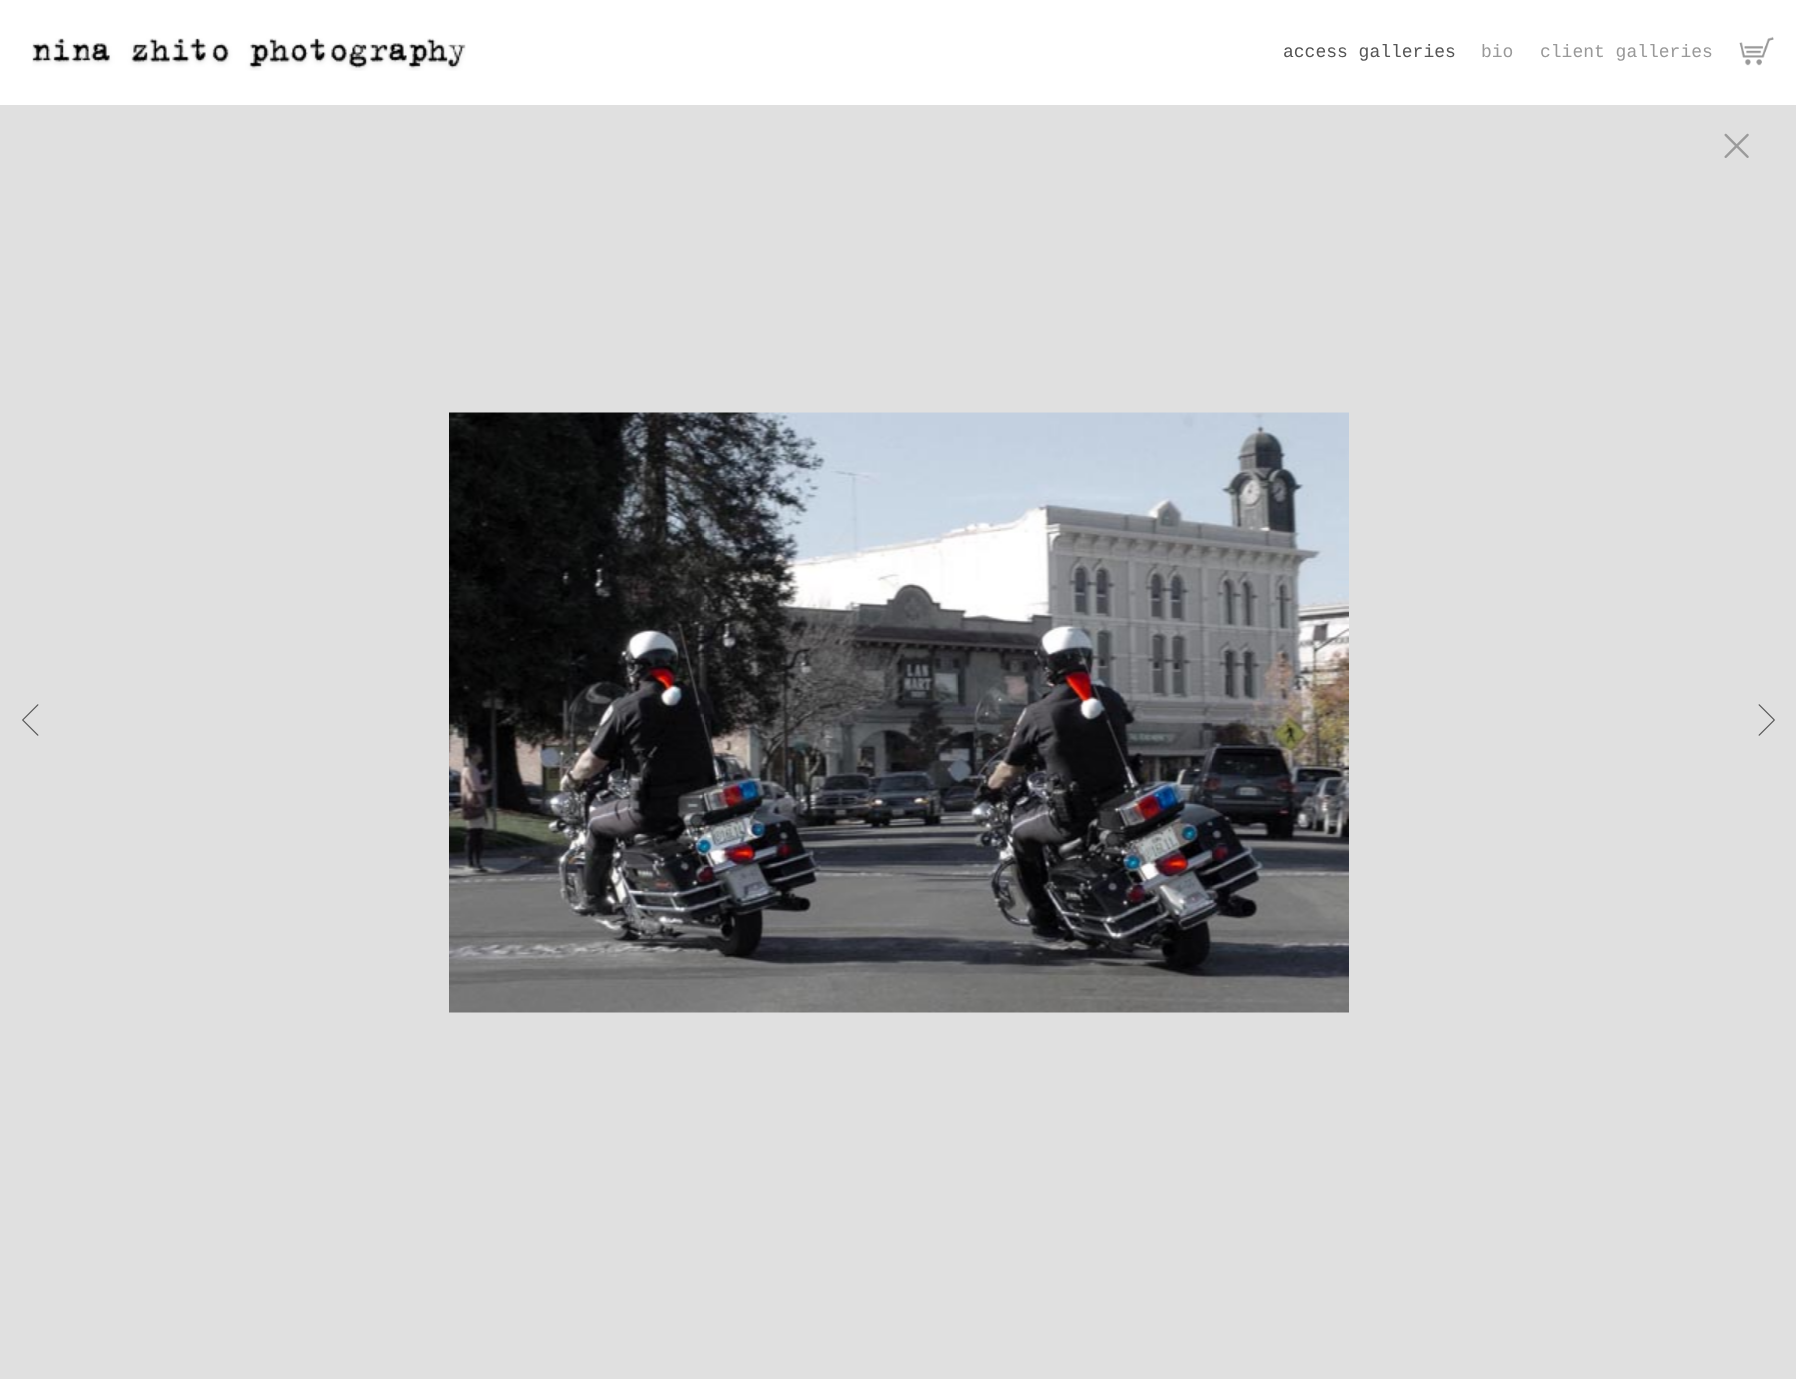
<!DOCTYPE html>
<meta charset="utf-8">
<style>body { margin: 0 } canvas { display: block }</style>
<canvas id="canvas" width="1796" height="1379"></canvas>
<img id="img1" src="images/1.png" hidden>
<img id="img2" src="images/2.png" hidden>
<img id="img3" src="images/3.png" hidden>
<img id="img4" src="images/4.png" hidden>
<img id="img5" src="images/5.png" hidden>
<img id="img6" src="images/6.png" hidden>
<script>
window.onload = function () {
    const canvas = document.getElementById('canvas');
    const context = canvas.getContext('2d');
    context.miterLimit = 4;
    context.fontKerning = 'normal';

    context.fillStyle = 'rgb(224, 224, 224)';
    context.fillRect(0, 0, 1796, 1379);
    context.fillStyle = 'rgb(255, 255, 255)';
    context.fillRect(0, 0, 1796, 105);
    context.drawImage(document.getElementById('img1'), 32, 38, 434, 33);
    context.drawImage(document.getElementById('img2'), 1739, 36, 35, 30);
    context.drawImage(document.getElementById('img3'), 1724, 133, 25, 25);
    context.drawImage(document.getElementById('img4'), 449, 412, 900, 601);
    context.drawImage(document.getElementById('img5'), 22, 704, 17, 32);
    context.drawImage(document.getElementById('img6'), 1758, 704, 17, 32);
    context.font = '18px Liberation Mono';
    context.fillStyle = 'rgb(85, 85, 85)';
    context.fillText('access galleries', 1283, 57);
    context.fillStyle = 'rgb(153, 153, 153)';
    context.fillText('bio', 1481, 57);
    context.fillText('client galleries', 1540, 57);
};
</script>
